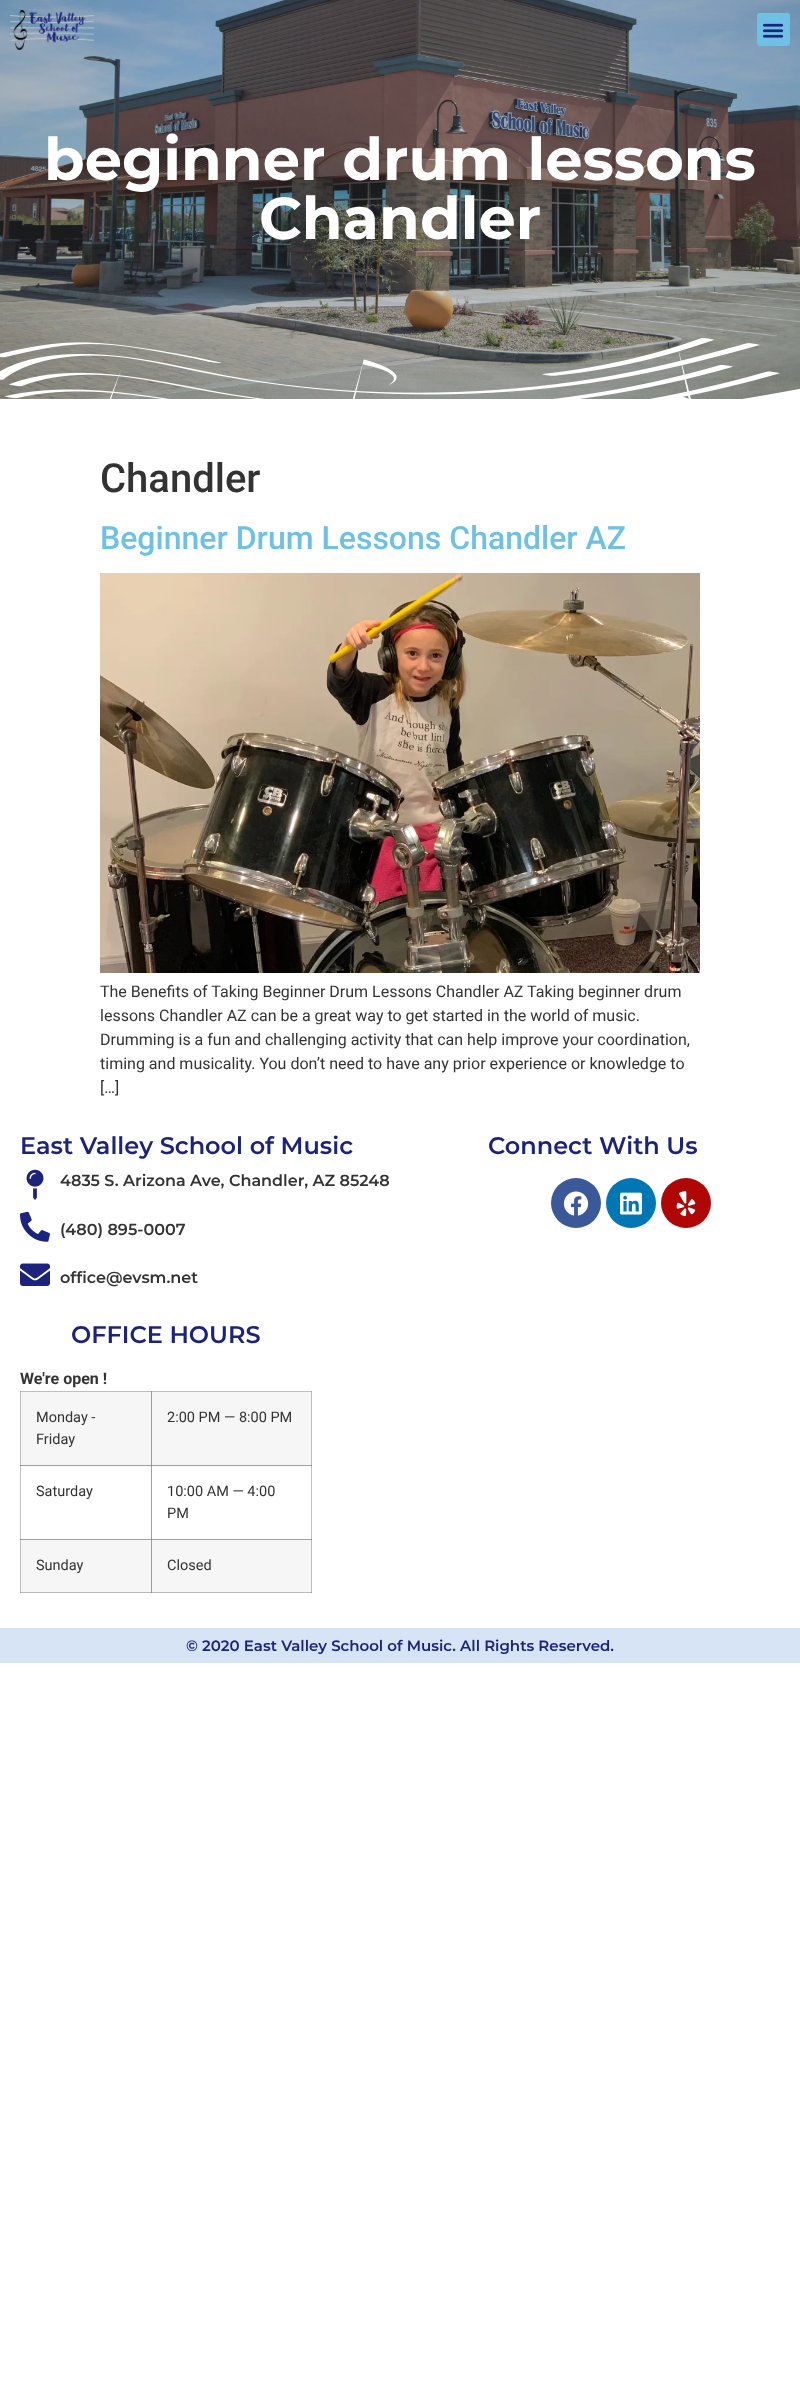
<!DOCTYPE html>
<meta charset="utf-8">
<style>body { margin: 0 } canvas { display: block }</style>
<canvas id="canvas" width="800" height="2398"></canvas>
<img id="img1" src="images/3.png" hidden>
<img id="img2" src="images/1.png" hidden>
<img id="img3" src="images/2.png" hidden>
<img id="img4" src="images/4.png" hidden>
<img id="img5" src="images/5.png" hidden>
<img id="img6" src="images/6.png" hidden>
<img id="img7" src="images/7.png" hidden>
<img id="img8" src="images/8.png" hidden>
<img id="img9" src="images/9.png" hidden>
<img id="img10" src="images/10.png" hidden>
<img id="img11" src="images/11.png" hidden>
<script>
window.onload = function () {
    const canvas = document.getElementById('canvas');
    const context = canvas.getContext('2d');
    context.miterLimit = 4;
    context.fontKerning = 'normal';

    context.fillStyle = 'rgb(255, 255, 255)';
    context.fillRect(0, 0, 800, 2398);
    context.fillStyle = 'rgb(192, 192, 192)';
    context.fillRect(20, 1391, 1, 202);
    context.fillRect(20, 1391, 292, 1);
    context.fillStyle = 'rgb(160, 160, 160)';
    context.fillRect(20, 1391, 1, 1);
    context.fillStyle = 'rgb(136, 136, 136)';
    context.fillRect(20, 1465, 1, 1);
    context.fillStyle = 'rgb(160, 160, 160)';
    context.fillRect(151, 1465, 1, 75);
    context.fillStyle = 'rgb(192, 192, 192)';
    context.fillRect(311, 1465, 1, 75);
    context.fillStyle = 'rgb(160, 160, 160)';
    context.fillRect(20, 1592, 1, 1);
    context.fillRect(20, 1539, 292, 1);
    context.fillStyle = 'rgb(136, 136, 136)';
    context.fillRect(20, 1539, 1, 1);
    context.drawImage(document.getElementById('img1'), 0, 0, 800, 399);
    context.drawImage(document.getElementById('img2'), 10, 10, 84, 40);
    context.fillStyle = 'rgb(110, 193, 228)';
    context.beginPath();
    context.roundRect(757, 13, 33, 33, 3);
    context.fill();
    context.drawImage(document.getElementById('img3'), 762, 23, 22, 15);
    context.drawImage(document.getElementById('img4'), 0, 338, 800, 101);
    context.drawImage(document.getElementById('img5'), 100, 573, 600, 400);
    context.drawImage(document.getElementById('img6'), 26, 1169, 18, 31);
    context.drawImage(document.getElementById('img7'), 20, 1211, 30, 31);
    context.drawImage(document.getElementById('img8'), 20, 1263, 30, 23);
    context.fillStyle = 'rgb(59, 89, 152)';
    context.beginPath();
    context.arc(576, 1203, 25, 0, 2 * Math.PI);
    context.fill();
    context.drawImage(document.getElementById('img9'), 563, 1191, 26, 25);
    context.fillStyle = 'rgb(0, 119, 181)';
    context.beginPath();
    context.arc(631, 1203, 25, 0, 2 * Math.PI);
    context.fill();
    context.drawImage(document.getElementById('img10'), 620, 1192, 22, 23);
    context.fillStyle = 'rgb(175, 6, 6)';
    context.beginPath();
    context.arc(686, 1203, 25, 0, 2 * Math.PI);
    context.fill();
    context.drawImage(document.getElementById('img11'), 676, 1191, 20, 26);
    context.fillStyle = 'rgb(246, 246, 246)';
    context.fillRect(21, 1392, 130, 73);
    context.fillStyle = 'rgb(158, 158, 158)';
    context.fillRect(21, 1465, 130, 1);
    context.fillStyle = 'rgb(246, 246, 246)';
    context.fillRect(152, 1392, 159, 73);
    context.fillStyle = 'rgb(158, 158, 158)';
    context.fillRect(151, 1392, 1, 74);
    context.fillStyle = 'rgb(187, 187, 187)';
    context.fillRect(311, 1392, 1, 74);
    context.fillStyle = 'rgb(136, 136, 136)';
    context.fillRect(151, 1391, 1, 1);
    context.fillStyle = 'rgb(160, 160, 160)';
    context.fillRect(311, 1391, 1, 1);
    context.fillStyle = 'rgb(158, 158, 158)';
    context.fillRect(151, 1465, 161, 1);
    context.fillStyle = 'rgb(129, 129, 129)';
    context.fillRect(151, 1465, 1, 1);
    context.fillStyle = 'rgb(136, 136, 136)';
    context.fillRect(311, 1465, 1, 1);
    context.fillStyle = 'rgb(246, 246, 246)';
    context.fillRect(21, 1540, 130, 52);
    context.fillStyle = 'rgb(187, 187, 187)';
    context.fillRect(21, 1592, 130, 1);
    context.fillStyle = 'rgb(246, 246, 246)';
    context.fillRect(152, 1540, 159, 52);
    context.fillStyle = 'rgb(158, 158, 158)';
    context.fillRect(151, 1540, 1, 53);
    context.fillStyle = 'rgb(187, 187, 187)';
    context.fillRect(151, 1592, 161, 1);
    context.fillStyle = 'rgb(136, 136, 136)';
    context.fillRect(151, 1592, 1, 1);
    context.fillStyle = 'rgb(187, 187, 187)';
    context.fillRect(311, 1540, 1, 53);
    context.fillStyle = 'rgb(158, 158, 158)';
    context.fillRect(311, 1592, 1, 1);
    context.fillStyle = 'rgb(129, 129, 129)';
    context.fillRect(151, 1539, 1, 1);
    context.fillStyle = 'rgb(136, 136, 136)';
    context.fillRect(311, 1539, 1, 1);
    context.fillStyle = 'rgb(214, 228, 245)';
    context.fillRect(0, 1628, 800, 35);
    context.font = 'bold 59px Montserrat';
    context.fillStyle = 'rgb(255, 255, 255)';
    context.fillText('beginner drum lessons', 44, 180);
    context.fillText('Chandler', 259, 239);
    context.font = '500 40px Roboto';
    context.fillStyle = 'rgb(51, 51, 51)';
    context.fillText('Chandler', 100, 492);
    context.font = '500 32px Roboto';
    context.fillStyle = 'rgb(110, 193, 228)';
    context.fillText('Beginner Drum Lessons Chandler AZ', 100, 549);
    context.font = '16px Roboto';
    context.fillStyle = 'rgb(51, 51, 51)';
    context.fillText('The Benefits of Taking Beginner Drum Lessons Chandler AZ Taking beginner drum', 100, 997);
    context.fillText('lessons Chandler AZ can be a great way to get started in the world of music.', 100, 1021);
    context.fillText('Drumming is a fun and challenging activity that can help improve your coordination,', 100, 1045);
    context.fillText('timing and musicality. You don’t need to have any prior experience or knowledge to', 100, 1069);
    context.fillText('[…]', 100, 1093);
    context.font = '600 24px Montserrat';
    context.fillStyle = 'rgb(27, 35, 126)';
    context.fillText('East Valley School of Music', 20, 1154);
    context.font = '600 16px Montserrat';
    context.fillStyle = 'rgb(51, 51, 51)';
    context.fillText('4835 S. Arizona Ave, Chandler, AZ 85248', 60, 1186);
    context.fillText('(480) 895-0007', 60, 1235);
    context.fillText('office@evsm.net', 60, 1283);
    context.font = '600 24px Montserrat';
    context.fillStyle = 'rgb(27, 35, 126)';
    context.fillText('Connect With Us', 488, 1154);
    context.fillText('OFFICE HOURS', 71, 1343);
    context.font = 'bold 16px Roboto';
    context.fillStyle = 'rgb(51, 51, 51)';
    context.fillText('We\'re open !', 20, 1384);
    context.font = '14.5px Roboto';
    context.fillText('Monday -', 36, 1422);
    context.fillText('Friday', 36, 1444);
    context.fillText('2:00 PM — 8:00 PM', 167, 1422);
    context.fillText('Saturday', 36, 1496);
    context.fillText('10:00 AM — 4:00', 167, 1496);
    context.fillText('PM', 167, 1518);
    context.fillText('Sunday', 36, 1570);
    context.fillText('Closed', 167, 1570);
    context.font = '600 15px Montserrat';
    context.fillStyle = 'rgb(27, 35, 126)';
    context.fillText('© 2020 East Valley School of Music. All Rights Reserved.', 186, 1651);
};
</script>
